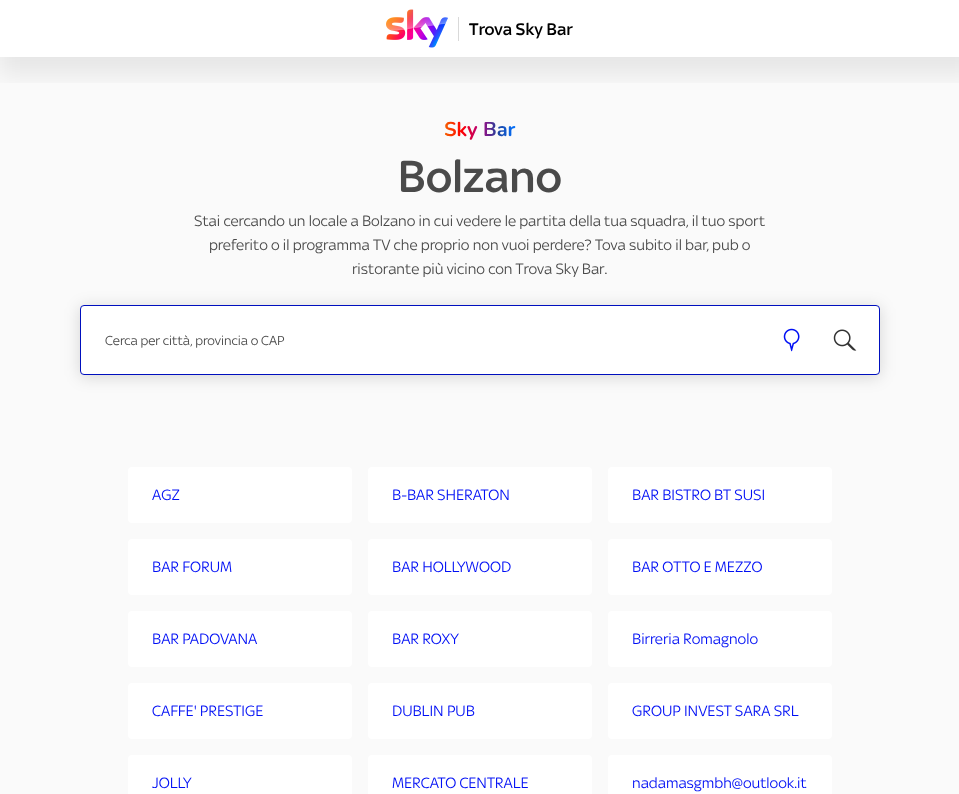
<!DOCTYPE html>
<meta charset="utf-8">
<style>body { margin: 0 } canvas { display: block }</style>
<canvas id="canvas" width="959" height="794"></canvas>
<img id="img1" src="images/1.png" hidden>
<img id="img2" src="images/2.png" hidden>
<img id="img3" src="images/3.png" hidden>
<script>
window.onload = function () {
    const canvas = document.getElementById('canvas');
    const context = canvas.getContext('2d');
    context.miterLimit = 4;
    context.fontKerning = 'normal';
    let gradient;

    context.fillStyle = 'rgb(255, 255, 255)';
    context.fillRect(0, 0, 959, 794);
    context.fillStyle = 'rgb(250, 250, 250)';
    context.fillRect(0, 57, 959, 737);
    context.save();
    context.beginPath();
    context.rect(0, 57, 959, 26);
    context.clip();
    context.fillStyle = 'rgba(0, 0, 0, 0.08)';
    context.filter = 'blur(12px)';
    context.beginPath();
    context.rect(-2, -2, 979, 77);
    context.fill();
    context.filter = 'none';
    context.restore();
    context.drawImage(document.getElementById('img1'), 386, 9, 62, 39);
    context.fillStyle = 'rgb(217, 217, 217)';
    context.fillRect(458, 17, 1, 24);
    context.fillStyle = 'rgba(0, 0, 0, 0.15)';
    context.filter = 'blur(8px)';
    context.beginPath();
    context.roundRect(80, 307, 800, 70, 4);
    context.fill();
    context.filter = 'none';
    context.fillStyle = 'rgb(255, 255, 255)';
    context.beginPath();
    context.roundRect(80.5, 305.5, 799, 69, 3.5);
    context.fill();
    context.strokeStyle = 'rgb(0, 15, 190)';
    context.stroke();
    context.drawImage(document.getElementById('img2'), 783, 328, 17, 24);
    context.drawImage(document.getElementById('img3'), 833, 329, 24, 22);
    context.beginPath();
    context.roundRect(128, 467, 224, 56, 4);
    context.fill();
    context.beginPath();
    context.roundRect(368, 467, 224, 56, 4);
    context.fill();
    context.beginPath();
    context.roundRect(608, 467, 224, 56, 4);
    context.fill();
    context.beginPath();
    context.roundRect(128, 539, 224, 56, 4);
    context.fill();
    context.beginPath();
    context.roundRect(368, 539, 224, 56, 4);
    context.fill();
    context.beginPath();
    context.roundRect(608, 539, 224, 56, 4);
    context.fill();
    context.beginPath();
    context.roundRect(128, 611, 224, 56, 4);
    context.fill();
    context.beginPath();
    context.roundRect(368, 611, 224, 56, 4);
    context.fill();
    context.beginPath();
    context.roundRect(608, 611, 224, 56, 4);
    context.fill();
    context.beginPath();
    context.roundRect(128, 683, 224, 56, 4);
    context.fill();
    context.beginPath();
    context.roundRect(368, 683, 224, 56, 4);
    context.fill();
    context.beginPath();
    context.roundRect(608, 683, 224, 56, 4);
    context.fill();
    context.beginPath();
    context.roundRect(128, 755, 224, 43, 4);
    context.fill();
    context.beginPath();
    context.roundRect(368, 755, 224, 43, 4);
    context.fill();
    context.beginPath();
    context.roundRect(608, 755, 224, 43, 4);
    context.fill();
    context.font = '500 18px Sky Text';
    context.fillStyle = 'rgb(0, 0, 0)';
    context.fillText('Trova Sky Bar', 469, 35);
    context.font = 'bold 20px Nunito';
    gradient = context.createLinearGradient(444, 130, 515, 130);
    gradient.addColorStop(0, 'rgb(245, 100, 0)');
    gradient.addColorStop(0.25, 'rgb(255, 0, 0)');
    gradient.addColorStop(0.5, 'rgb(181, 0, 125)');
    gradient.addColorStop(0.75, 'rgb(33, 66, 156)');
    gradient.addColorStop(1, 'rgb(0, 113, 255)');
    context.fillStyle = gradient;
    context.fillText('Sky Bar', 444, 136);
    context.font = '500 48px Sky Text';
    context.fillStyle = 'rgb(74, 74, 74)';
    context.fillText('Bolzano', 398, 192);
    context.font = '16px Sky Text';
    context.fillText('Stai cercando un locale a Bolzano in cui vedere le partita della tua squadra, il tuo sport', 194, 226);
    context.fillText('preferito o il programma TV che proprio non vuoi perdere? Tova subito il bar, pub o', 209, 250);
    context.fillText('ristorante più vicino con Trova Sky Bar.', 352, 274);
    context.font = '14px Sky Text';
    context.fillText('Cerca per città, provincia o CAP', 105, 345);
    context.font = '16px Sky Text';
    context.fillStyle = 'rgb(0, 15, 245)';
    context.fillText('AGZ', 152, 500);
    context.fillText('B-BAR SHERATON', 392, 500);
    context.fillText('BAR BISTRO BT SUSI', 632, 500);
    context.fillText('BAR FORUM', 152, 572);
    context.fillText('BAR HOLLYWOOD', 392, 572);
    context.fillText('BAR OTTO E MEZZO', 632, 572);
    context.fillText('BAR PADOVANA', 152, 644);
    context.fillText('BAR ROXY', 392, 644);
    context.fillText('Birreria Romagnolo', 632, 644);
    context.fillText('CAFFE\' PRESTIGE', 152, 716);
    context.fillText('DUBLIN PUB', 392, 716);
    context.fillText('GROUP INVEST SARA SRL', 632, 716);
    context.fillText('JOLLY', 152, 788);
    context.fillText('MERCATO CENTRALE', 392, 788);
    context.fillText('nadamasgmbh@outlook.it', 632, 788);
};
</script>
